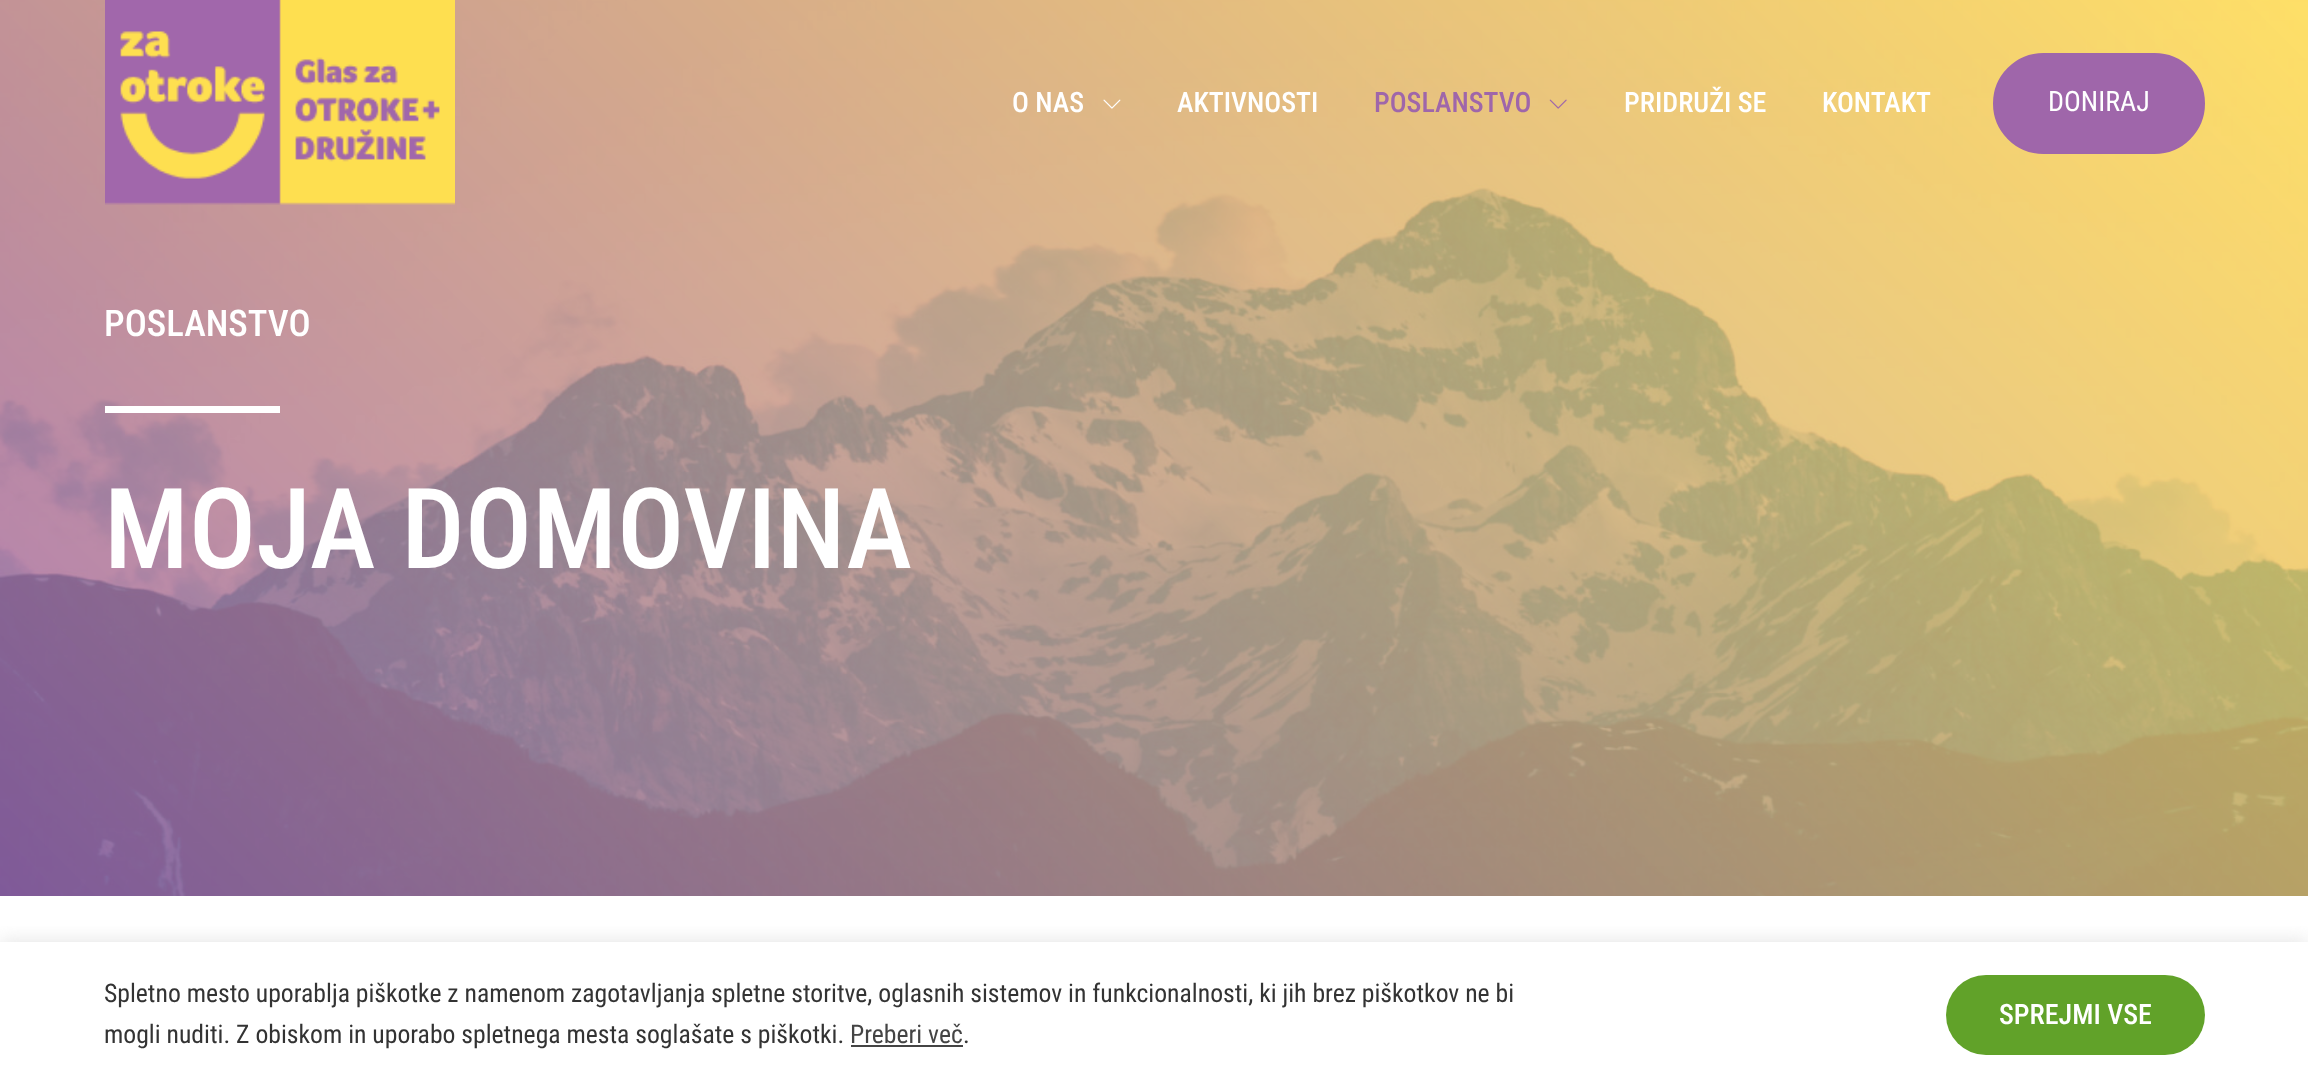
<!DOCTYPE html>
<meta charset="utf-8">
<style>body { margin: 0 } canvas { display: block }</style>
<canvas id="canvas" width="2308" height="1087"></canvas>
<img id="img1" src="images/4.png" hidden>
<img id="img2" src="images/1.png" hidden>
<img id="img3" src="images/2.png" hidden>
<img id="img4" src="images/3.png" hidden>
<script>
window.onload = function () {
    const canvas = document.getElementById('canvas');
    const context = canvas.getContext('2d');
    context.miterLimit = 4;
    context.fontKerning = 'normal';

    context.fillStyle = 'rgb(255, 255, 255)';
    context.fillRect(0, 0, 2308, 1087);
    context.drawImage(document.getElementById('img1'), 0, 0, 2308, 896);
    context.drawImage(document.getElementById('img2'), 105, 0, 350, 205);
    context.drawImage(document.getElementById('img3'), 1103, 99, 18, 10);
    context.drawImage(document.getElementById('img4'), 1549, 99, 18, 10);
    context.fillStyle = 'rgb(159, 102, 170)';
    context.beginPath();
    context.roundRect(1994, 54, 210, 99, 49.5);
    context.fill();
    context.strokeStyle = 'rgb(159, 102, 170)';
    context.lineWidth = 2;
    context.stroke();
    context.fillStyle = 'rgb(255, 255, 255)';
    context.fillRect(105, 406, 175, 7);
    context.save();
    context.beginPath();
    context.rect(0, 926, 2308, 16);
    context.clip();
    context.fillStyle = 'rgba(172, 171, 171, 0.3)';
    context.filter = 'blur(9px)';
    context.beginPath();
    context.rect(0, 940, 2308, 147);
    context.fill();
    context.filter = 'none';
    context.restore();
    context.fillStyle = 'rgb(68, 68, 68)';
    context.fillRect(851, 1045, 112, 2);
    context.fillStyle = 'rgb(97, 162, 41)';
    context.beginPath();
    context.roundRect(1946, 975, 259, 80, 40);
    context.fill();
    context.font = '500 28px Roboto Condensed';
    context.fillStyle = 'rgb(255, 255, 255)';
    context.fillText('O NAS', 1012, 112);
    context.fillText('AKTIVNOSTI', 1177, 112);
    context.fillStyle = 'rgb(159, 102, 170)';
    context.fillText('POSLANSTVO', 1374, 112);
    context.fillStyle = 'rgb(255, 255, 255)';
    context.fillText('PRIDRUŽI SE', 1624, 112);
    context.fillText('KONTAKT', 1822, 112);
    context.font = '28px Roboto Condensed';
    context.fillText('DONIRAJ', 2048, 111);
    context.font = '500 36.75px Roboto Condensed';
    context.fillText('POSLANSTVO', 104, 336);
    context.font = '500 112px Roboto Condensed';
    context.fillText('MOJA DOMOVINA', 104, 568);
    context.font = '25.67px Roboto Condensed';
    context.fillStyle = 'rgb(51, 51, 51)';
    context.fillText('Spletno mesto uporablja piškotke z namenom zagotavljanja spletne storitve, oglasnih sistemov in funkcionalnosti, ki jih brez piškotkov ne bi', 104, 1002);
    context.fillText('mogli nuditi. Z obiskom in uporabo spletnega mesta soglašate s piškotki.', 104, 1043);
    context.fillStyle = 'rgb(68, 68, 68)';
    context.fillText('Preberi več', 850, 1043);
    context.fillStyle = 'rgb(51, 51, 51)';
    context.fillText('.', 963, 1043);
    context.font = '500 28px Roboto Condensed';
    context.fillStyle = 'rgb(255, 255, 255)';
    context.fillText('SPREJMI VSE', 1999, 1024);
};
</script>
